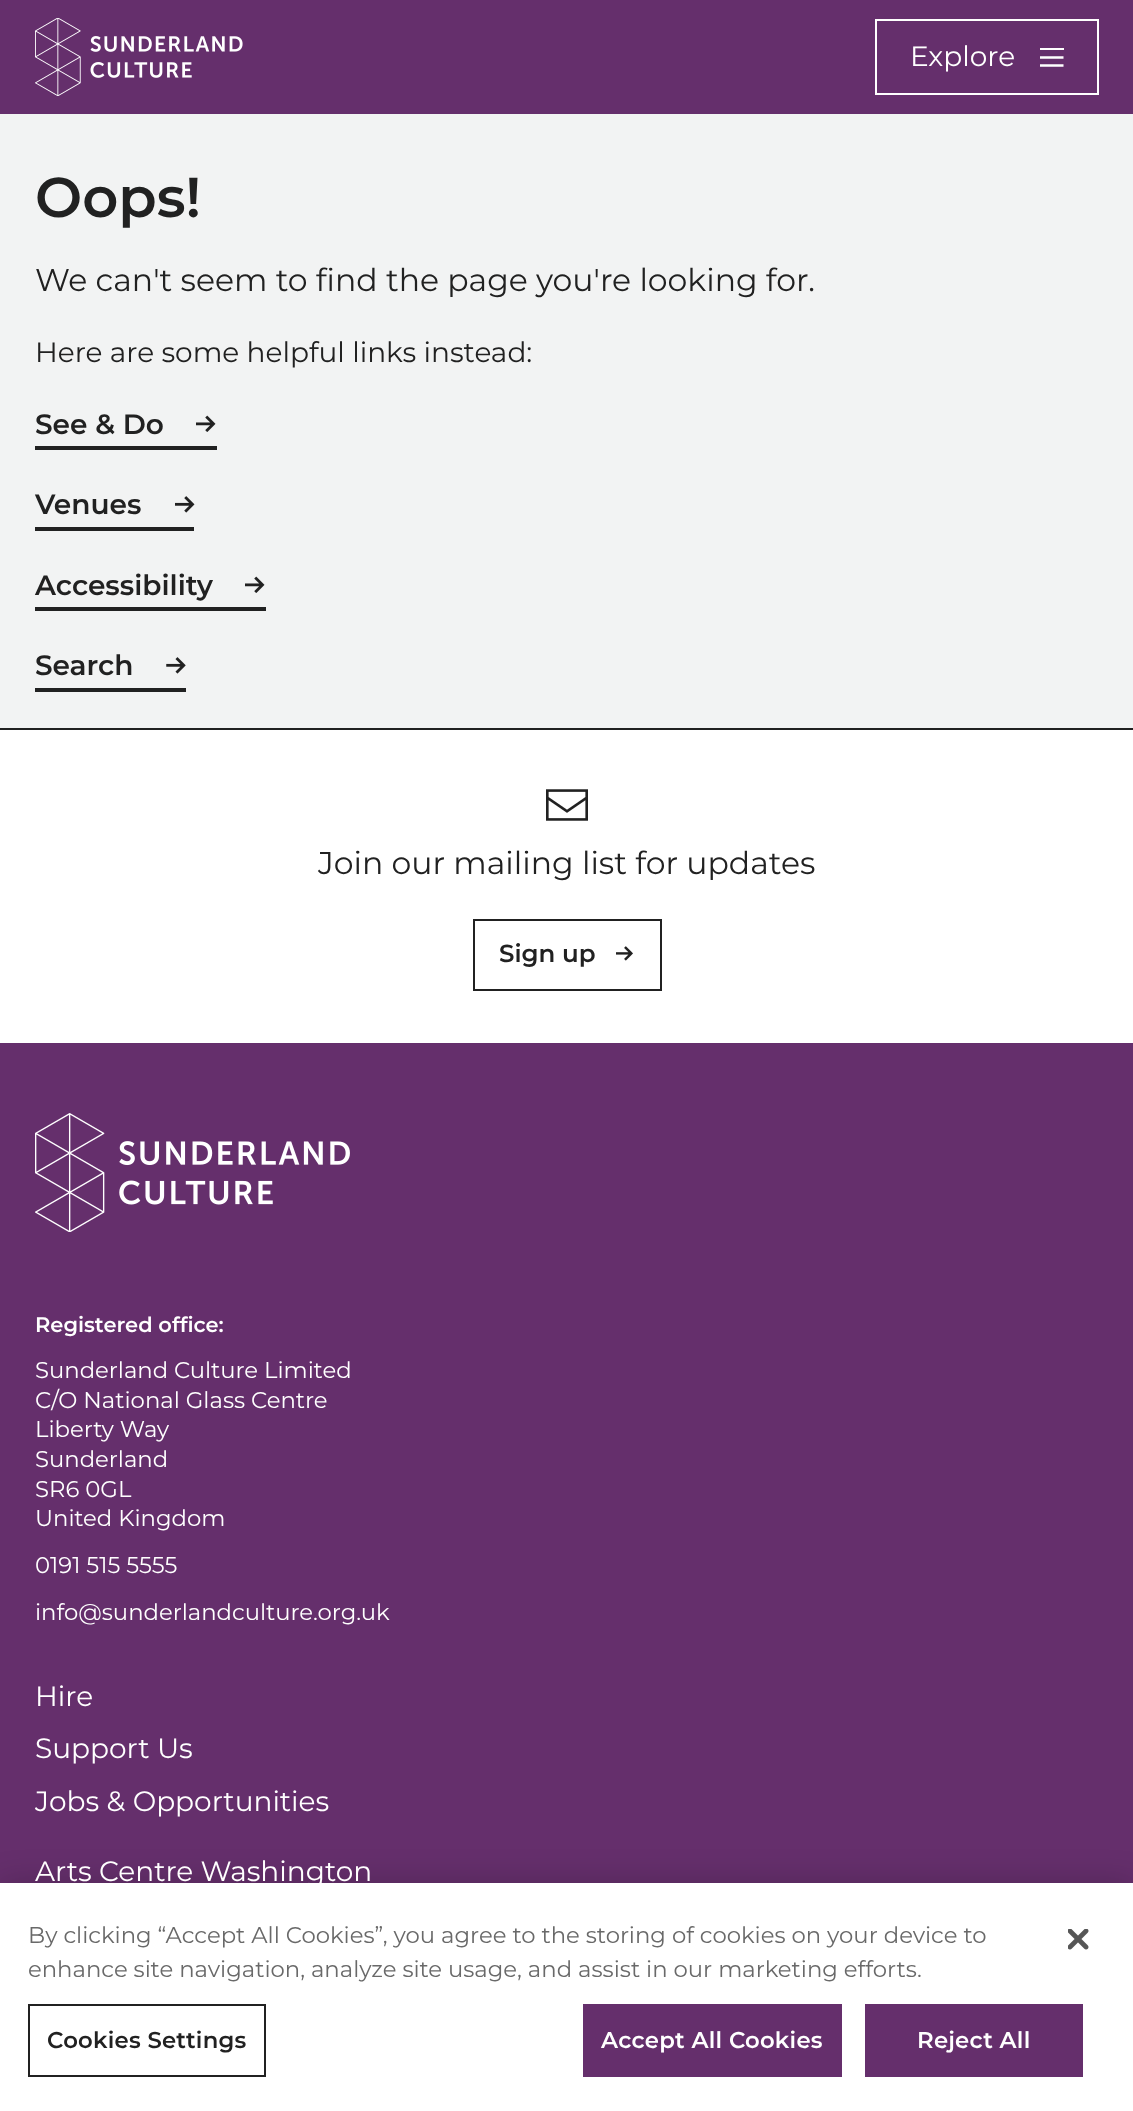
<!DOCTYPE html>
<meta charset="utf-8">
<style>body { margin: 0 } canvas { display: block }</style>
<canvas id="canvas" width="1133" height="2111"></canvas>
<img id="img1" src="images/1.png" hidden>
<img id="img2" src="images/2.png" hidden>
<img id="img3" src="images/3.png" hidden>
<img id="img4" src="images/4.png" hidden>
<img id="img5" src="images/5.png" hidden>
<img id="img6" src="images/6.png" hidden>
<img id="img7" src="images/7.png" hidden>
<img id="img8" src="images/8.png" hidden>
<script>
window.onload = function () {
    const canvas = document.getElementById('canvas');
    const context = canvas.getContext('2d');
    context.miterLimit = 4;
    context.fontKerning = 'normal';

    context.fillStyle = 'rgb(101, 47, 108)';
    context.fillRect(0, 0, 1133, 2111);
    context.drawImage(document.getElementById('img1'), 35, 18, 208, 78);
    context.strokeStyle = 'rgb(255, 255, 255)';
    context.lineWidth = 2;
    context.strokeRect(876, 20, 222, 74);
    context.fillStyle = 'rgb(255, 255, 255)';
    context.fillRect(1040, 48, 24, 2);
    context.save();
    context.beginPath();
    context.rect(1040, 46, 24, 22);
    context.clip();
    context.beginPath();
    context.moveTo(1039.5, 57.5);
    context.lineTo(1063.5, 57.5);
    context.moveTo(1039.5, 65.5);
    context.lineTo(1063.5, 65.5);
    context.lineWidth = 2.4;
    context.stroke();
    context.restore();
    context.fillStyle = 'rgb(242, 243, 243)';
    context.fillRect(0, 114, 1133, 614);
    context.fillStyle = 'rgb(33, 33, 33)';
    context.fillRect(35, 446, 182, 4);
    context.drawImage(document.getElementById('img2'), 196, 415, 20, 17);
    context.fillRect(35, 527, 159, 4);
    context.drawImage(document.getElementById('img3'), 175, 496, 20, 17);
    context.fillRect(35, 607, 231, 4);
    context.drawImage(document.getElementById('img2'), 245, 576, 20, 17);
    context.fillRect(35, 688, 151, 4);
    context.drawImage(document.getElementById('img4'), 166, 657, 20, 17);
    context.fillStyle = 'rgb(255, 255, 255)';
    context.fillRect(0, 730, 1133, 313);
    context.fillStyle = 'rgb(33, 33, 33)';
    context.fillRect(0, 728, 1133, 2);
    context.drawImage(document.getElementById('img5'), 546, 789, 42, 32);
    context.strokeStyle = 'rgb(33, 33, 33)';
    context.strokeRect(474, 920, 187, 70);
    context.drawImage(document.getElementById('img6'), 616, 946, 17, 15);
    context.drawImage(document.getElementById('img7'), 35, 1113, 315, 119);
    context.fillStyle = 'rgba(0, 0, 0, 0.2)';
    context.filter = 'blur(16px)';
    context.beginPath();
    context.rect(0, 1883, 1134, 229);
    context.fill();
    context.filter = 'none';
    context.fillStyle = 'rgb(255, 255, 255)';
    context.fillRect(0, 1883, 1133, 228);
    context.strokeRect(29, 2005, 236, 71);
    context.fillStyle = 'rgb(101, 47, 108)';
    context.fillRect(583, 2004, 259, 73);
    context.fillRect(865, 2004, 218, 73);
    context.drawImage(document.getElementById('img8'), 1068, 1929, 21, 21);
    context.font = '28px Montserrat';
    context.fillStyle = 'rgb(255, 255, 255)';
    context.fillText('Explore', 910, 66);
    context.font = '600 56px Montserrat';
    context.fillStyle = 'rgb(33, 33, 33)';
    context.fillText('Oops!', 35, 217);
    context.font = '31.5px Montserrat';
    context.fillText('We can\'t seem to find the page you\'re looking for.', 35, 291);
    context.font = '28px Montserrat';
    context.fillText('Here are some helpful links instead:', 35, 362);
    context.font = '600 28px Montserrat';
    context.fillText('See & Do', 35, 434);
    context.fillText('Venues', 35, 514);
    context.fillText('Accessibility', 35, 595);
    context.fillText('Search', 35, 675);
    context.font = '31.5px Montserrat';
    context.fillText('Join our mailing list for updates', 318, 874);
    context.font = '600 24.5px Montserrat';
    context.fillText('Sign up', 499, 962);
    context.font = '600 21px Montserrat';
    context.fillStyle = 'rgb(255, 255, 255)';
    context.fillText('Registered office:', 35, 1332);
    context.font = '22.75px Montserrat';
    context.fillText('Sunderland Culture Limited', 35, 1378);
    context.fillText('C/O National Glass Centre', 35, 1408);
    context.fillText('Liberty Way', 35, 1437);
    context.fillText('Sunderland', 35, 1467);
    context.fillText('SR6 0GL', 35, 1497);
    context.fillText('United Kingdom', 35, 1526);
    context.fillText('0191 515 5555', 35, 1573);
    context.fillText('info@sunderlandculture.org.uk', 35, 1620);
    context.font = '28px Montserrat';
    context.fillText('Hire', 35, 1706);
    context.fillText('Support Us', 35, 1758);
    context.fillText('Jobs & Opportunities', 35, 1811);
    context.fillText('Arts Centre Washington', 35, 1881);
    context.font = '22.75px Montserrat';
    context.fillStyle = 'rgb(105, 105, 105)';
    context.fillText('By clicking “Accept All Cookies”, you agree to the storing of cookies on your device to', 28, 1943);
    context.fillText('enhance site navigation, analyze site usage, and assist in our marketing efforts.', 28, 1977);
    context.letterSpacing = '0.25px';
    context.font = '600 22.75px Montserrat';
    context.fillStyle = 'rgb(33, 33, 33)';
    context.fillText('Cookies Settings', 47, 2048);
    context.fillStyle = 'rgb(255, 255, 255)';
    context.fillText('Accept All Cookies', 601, 2048);
    context.fillText('Reject All', 917, 2048);
};
</script>
